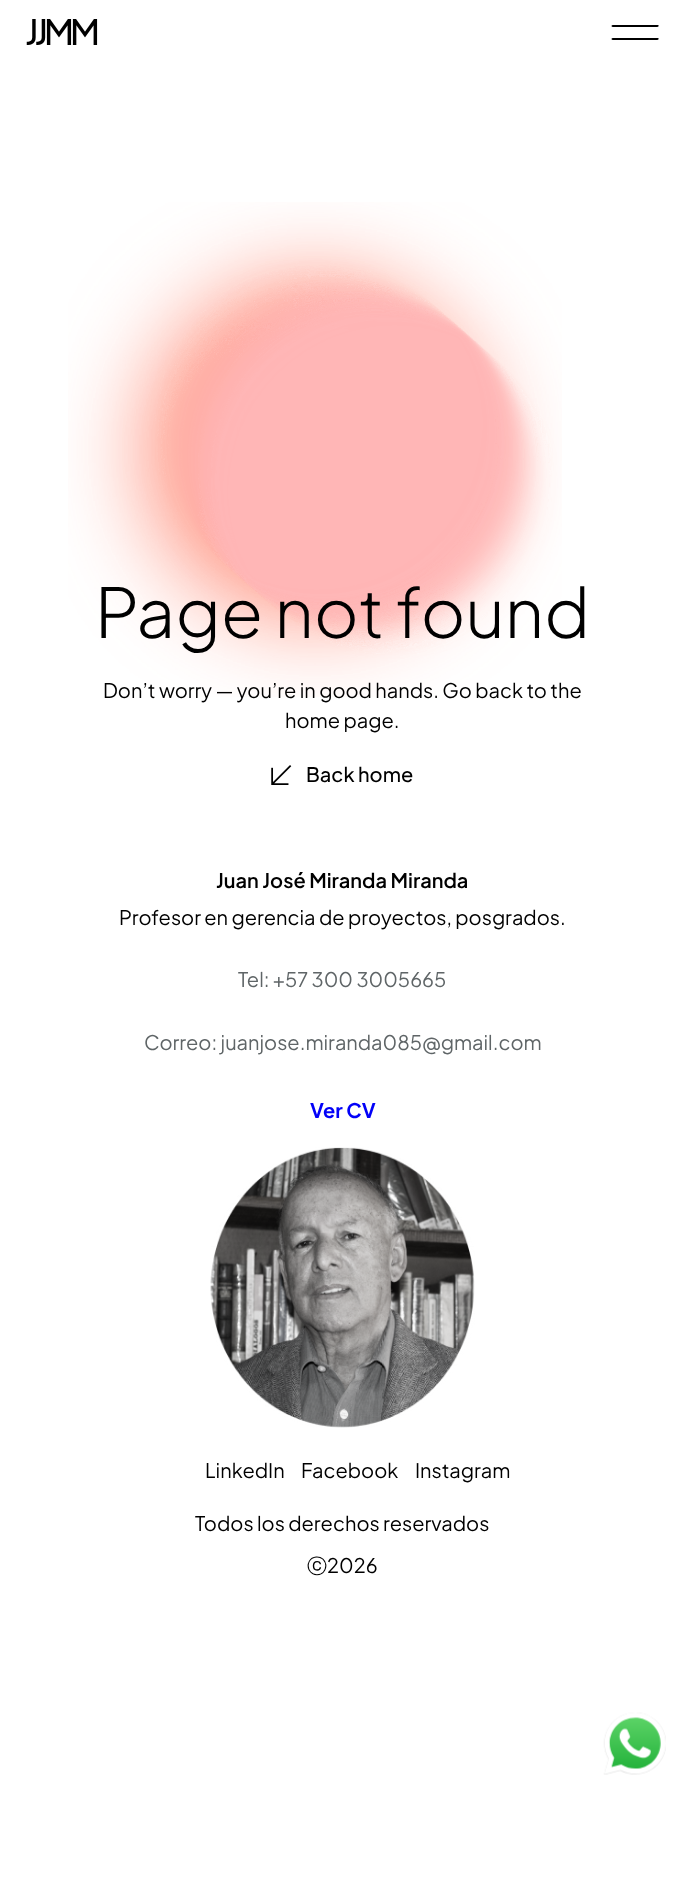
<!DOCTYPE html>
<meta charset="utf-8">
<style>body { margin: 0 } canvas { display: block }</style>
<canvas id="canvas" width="685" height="1900"></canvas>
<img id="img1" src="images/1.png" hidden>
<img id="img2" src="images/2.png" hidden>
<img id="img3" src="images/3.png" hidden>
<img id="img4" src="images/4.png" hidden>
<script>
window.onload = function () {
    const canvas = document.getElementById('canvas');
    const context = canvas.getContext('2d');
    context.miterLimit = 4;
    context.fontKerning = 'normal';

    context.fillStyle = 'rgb(255, 255, 255)';
    context.fillRect(0, 0, 685, 1900);
    context.fillStyle = 'rgb(0, 0, 0)';
    context.beginPath();
    context.moveTo(613, 25);
    context.bezierCurveTo(611, 25, 611, 27, 613, 27);
    context.lineTo(657, 27);
    context.bezierCurveTo(659, 27, 659, 25, 658, 25);
    context.closePath();
    context.moveTo(613, 38);
    context.bezierCurveTo(611, 38, 611, 40, 613, 40);
    context.lineTo(657, 40);
    context.bezierCurveTo(659, 40, 659, 38, 658, 38);
    context.closePath();
    context.fill();
    context.drawImage(document.getElementById('img1'), 68, 202, 494, 495);
    context.drawImage(document.getElementById('img2'), 271, 765, 21, 20);
    context.drawImage(document.getElementById('img3'), 210, 1147, 265, 281);
    context.drawImage(document.getElementById('img4'), 603, 1712, 63, 63);
    context.letterSpacing = '-4px';
    context.font = '500 35px Plus Jakarta Sans';
    context.fillText('JJMM', 25, 45);
    context.letterSpacing = '0px';
    context.font = '300 68.5px Plus Jakarta Sans';
    context.fillText('Page not found', 95, 638);
    context.font = '20px Plus Jakarta Sans';
    context.fillText('Don’t worry — you’re in good hands. Go back to the', 103, 698);
    context.fillText('home page.', 285, 728);
    context.font = '500 20px Plus Jakarta Sans';
    context.fillText('Back home', 306, 782);
    context.font = '600 20px Plus Jakarta Sans';
    context.fillText('Juan José Miranda Miranda', 216, 888);
    context.font = '20px Plus Jakarta Sans';
    context.fillText('Profesor en gerencia de proyectos, posgrados.', 119, 925);
    context.fillStyle = 'rgb(95, 101, 103)';
    context.fillText('Tel: +57 300 3005665', 238, 987);
    context.fillText('Correo: juanjose.miranda085@gmail.com', 144, 1050);
    context.font = 'bold 20px Plus Jakarta Sans';
    context.fillStyle = 'rgb(2, 1, 248)';
    context.fillText('Ver CV', 310, 1118);
    context.font = '20px Plus Jakarta Sans';
    context.fillStyle = 'rgb(0, 0, 0)';
    context.fillText('LinkedIn', 205, 1478);
    context.fillText('Facebook', 301, 1478);
    context.fillText('Instagram', 415, 1478);
    context.fillText('Todos los derechos reservados', 195, 1531);
    context.font = '500 20px WenQuanYi Zen Hei';
    context.fillText('ⓒ', 307, 1573);
    context.font = '20px Plus Jakarta Sans';
    context.fillText('2026', 327, 1573);
};
</script>
